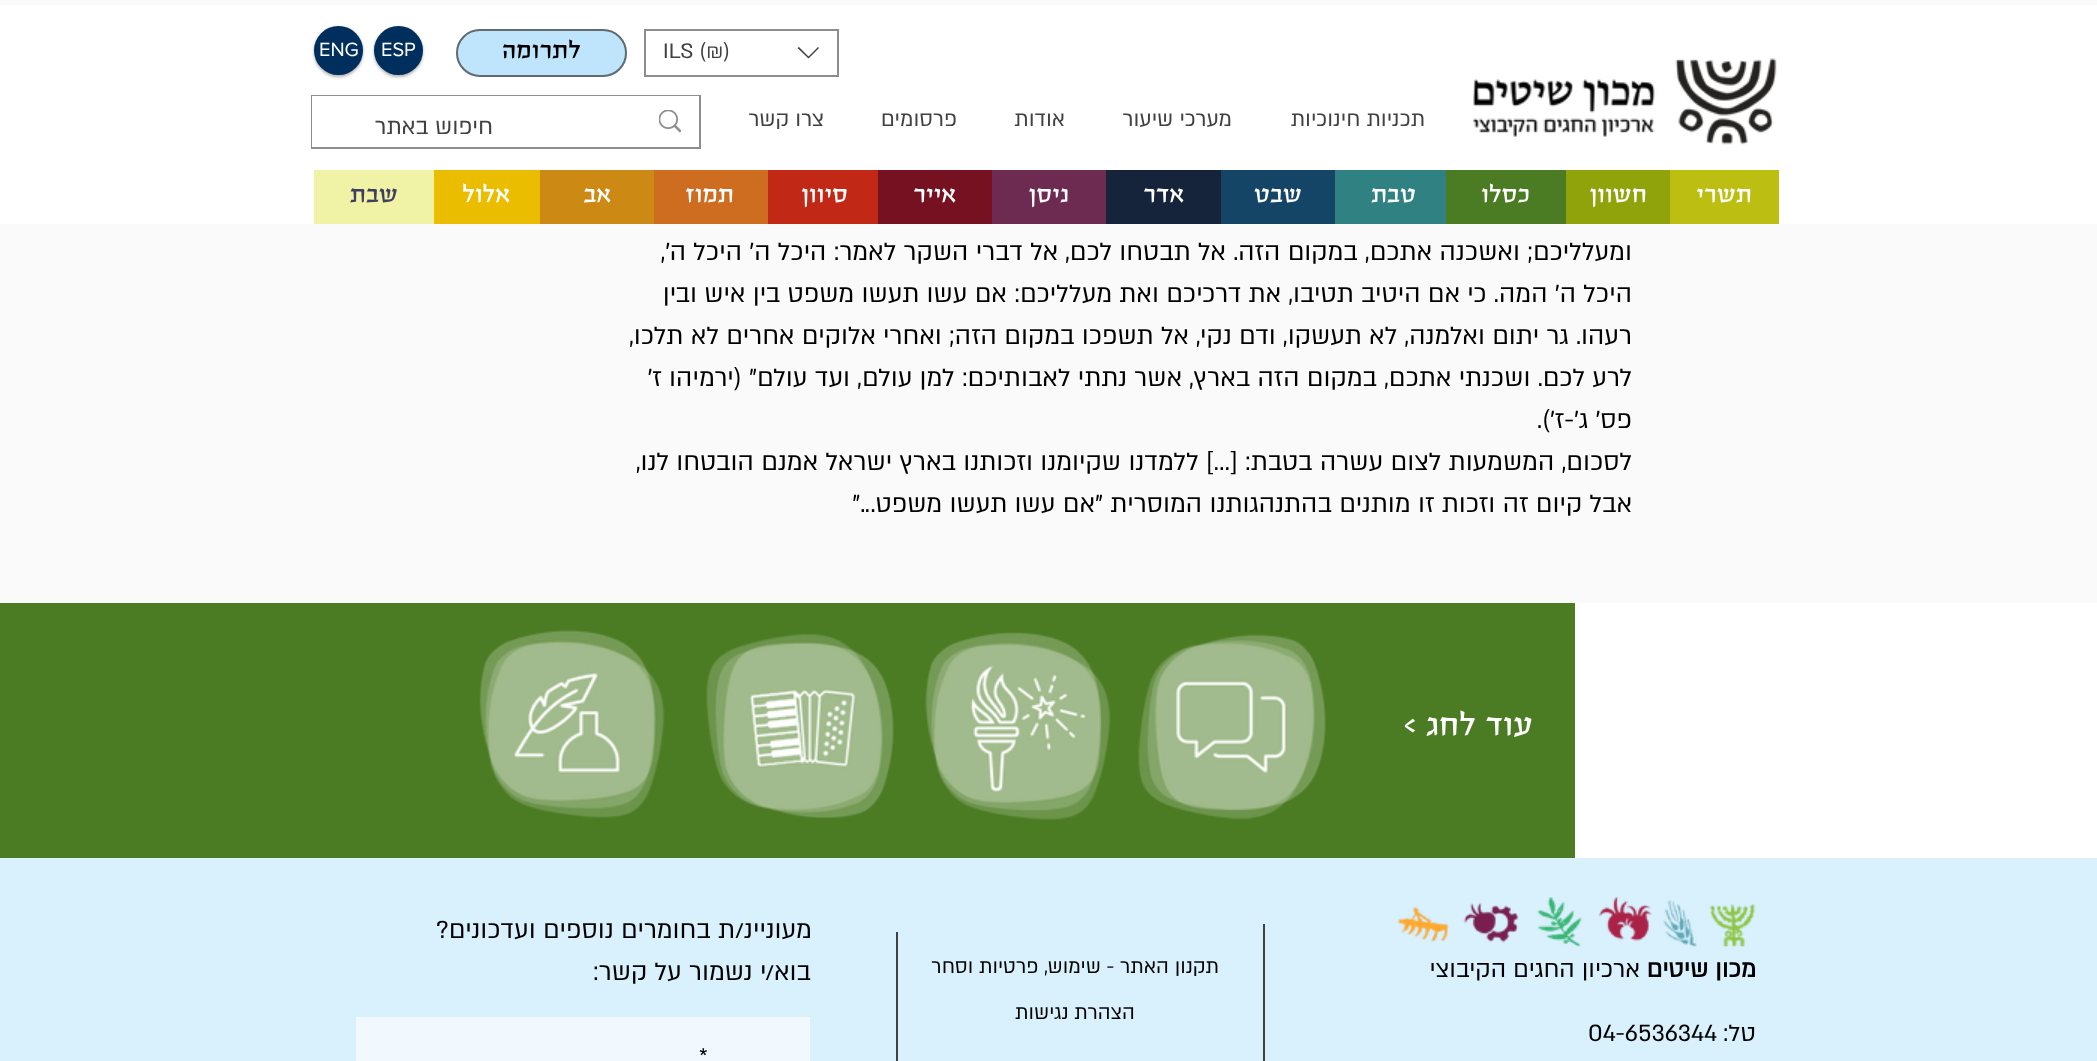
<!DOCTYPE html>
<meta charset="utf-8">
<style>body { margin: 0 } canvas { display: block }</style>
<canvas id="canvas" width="2097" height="1061"></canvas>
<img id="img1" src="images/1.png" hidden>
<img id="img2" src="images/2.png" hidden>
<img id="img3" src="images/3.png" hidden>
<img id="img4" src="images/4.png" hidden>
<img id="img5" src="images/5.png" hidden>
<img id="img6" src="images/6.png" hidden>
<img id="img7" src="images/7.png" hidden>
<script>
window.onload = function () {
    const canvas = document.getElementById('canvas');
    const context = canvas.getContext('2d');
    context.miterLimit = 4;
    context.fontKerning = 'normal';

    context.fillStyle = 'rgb(255, 255, 255)';
    context.fillRect(0, 0, 2097, 1061);
    context.fillStyle = 'rgb(250, 250, 250)';
    context.fillRect(0, 0, 2097, 603);
    context.fillStyle = 'rgb(255, 255, 255)';
    context.fillRect(0, 5, 2097, 219);
    context.strokeStyle = 'rgb(141, 141, 141)';
    context.lineWidth = 2;
    context.strokeRect(645, 30, 193, 46);
    context.fillStyle = 'rgb(65, 65, 65)';
    context.beginPath();
    context.moveTo(818, 47);
    context.lineTo(819, 48);
    context.lineTo(808.5, 58.5);
    context.lineTo(797.5, 48);
    context.lineTo(799, 47);
    context.lineTo(808.5, 56.5);
    context.closePath();
    context.fill('evenodd');
    context.fillStyle = 'rgb(190, 229, 251)';
    context.beginPath();
    context.roundRect(456, 29, 171, 48, 24);
    context.fill();
    context.beginPath();
    context.roundRect(457, 30, 169, 46, 23);
    context.strokeStyle = 'rgba(65, 65, 65, 0.75)';
    context.stroke();
    context.fillStyle = 'rgba(0, 0, 0, 0.3)';
    context.filter = 'blur(1.5px)';
    context.beginPath();
    context.roundRect(374, 27, 49, 50, 24.5);
    context.fill();
    context.filter = 'none';
    context.fillStyle = 'rgb(0, 46, 93)';
    context.beginPath();
    context.arc(398.5, 50.5, 24.5, 0, 2 * Math.PI);
    context.fill();
    context.fillStyle = 'rgba(0, 0, 0, 0.3)';
    context.filter = 'blur(1.5px)';
    context.beginPath();
    context.roundRect(314, 27, 49, 50, 24.5);
    context.fill();
    context.filter = 'none';
    context.fillStyle = 'rgb(0, 46, 93)';
    context.beginPath();
    context.arc(338.5, 50.5, 24.5, 0, 2 * Math.PI);
    context.fill();
    context.drawImage(document.getElementById('img1'), 1473, 58, 304, 87);
    context.strokeStyle = 'rgb(141, 141, 141)';
    context.strokeRect(312, 96, 388, 52);
    context.fillStyle = 'rgb(255, 255, 255)';
    context.fillRect(312, 96, 387, 51);
    context.drawImage(document.getElementById('img2'), 659, 110, 22, 23);
    context.fillStyle = 'rgb(188, 190, 17)';
    context.fillRect(1670, 170, 109, 54);
    context.fillStyle = 'rgb(145, 163, 11)';
    context.fillRect(1566, 170, 104, 54);
    context.fillStyle = 'rgb(75, 124, 35)';
    context.fillRect(1446, 170, 120, 54);
    context.fillStyle = 'rgb(48, 129, 130)';
    context.fillRect(1335, 170, 111, 54);
    context.fillStyle = 'rgb(20, 69, 102)';
    context.fillRect(1221, 170, 114, 54);
    context.fillStyle = 'rgb(21, 36, 59)';
    context.fillRect(1106, 170, 115, 54);
    context.fillStyle = 'rgb(110, 43, 82)';
    context.fillRect(992, 170, 114, 54);
    context.fillStyle = 'rgb(117, 17, 32)';
    context.fillRect(878, 170, 114, 54);
    context.fillStyle = 'rgb(194, 40, 22)';
    context.fillRect(768, 170, 110, 54);
    context.fillStyle = 'rgb(206, 108, 32)';
    context.fillRect(654, 170, 114, 54);
    context.fillStyle = 'rgb(204, 138, 20)';
    context.fillRect(540, 170, 114, 54);
    context.fillStyle = 'rgb(235, 189, 0)';
    context.fillRect(434, 170, 106, 54);
    context.fillStyle = 'rgb(240, 243, 166)';
    context.fillRect(314, 170, 120, 54);
    context.fillStyle = 'rgb(75, 124, 35)';
    context.fillRect(0, 603, 1575, 255);
    context.drawImage(document.getElementById('img3'), 1138, 634, 188, 186);
    context.drawImage(document.getElementById('img4'), 925, 632, 186, 188);
    context.drawImage(document.getElementById('img5'), 706, 634, 188, 184);
    context.drawImage(document.getElementById('img6'), 479, 630, 186, 188);
    context.fillStyle = 'rgb(217, 240, 253)';
    context.fillRect(0, 858, 2097, 203);
    context.drawImage(document.getElementById('img7'), 1397, 897, 359, 50);
    context.fillStyle = 'rgb(65, 65, 65)';
    context.fillRect(1263, 924, 2, 137);
    context.fillRect(896, 932, 2, 129);
    context.fillStyle = 'rgb(241, 249, 254)';
    context.fillRect(356, 1017, 454, 44);
    context.font = '24px "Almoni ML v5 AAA"';
    context.fillStyle = 'rgb(65, 65, 65)';
    context.fillText('ILS (₪)', 663, 58);
    context.direction = 'rtl';
    context.font = '28.5px "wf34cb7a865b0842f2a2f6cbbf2"';
    context.fillStyle = 'rgb(0, 0, 0)';
    context.fillText('לתרומה', 581, 58);
    context.direction = 'ltr';
    context.font = '20px "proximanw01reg"';
    context.fillStyle = 'rgb(255, 255, 255)';
    context.fillText('ESP', 381, 56);
    context.fillText('ENG', 319, 56);
    context.direction = 'rtl';
    context.font = '24px "Almoni ML v5 AAA"';
    context.fillStyle = 'rgb(65, 65, 65)';
    context.fillText('תכניות חינוכיות', 1425, 126);
    context.fillText('מערכי שיעור', 1232, 126);
    context.fillText('אודות', 1065, 126);
    context.fillText('פרסומים', 957, 126);
    context.fillText('צרו קשר', 824, 126);
    context.font = '25.5px "Almoni ML v5 AAA"';
    context.fillText('חיפוש באתר', 493, 134);
    context.font = '28.5px "wf34cb7a865b0842f2a2f6cbbf2"';
    context.fillStyle = 'rgb(255, 255, 255)';
    context.fillText('תשרי', 1752, 202);
    context.fillText('חשוון', 1647, 202);
    context.fillText('כסלו', 1530, 202);
    context.fillText('טבת', 1416, 202);
    context.fillText('שבט', 1302, 202);
    context.fillText('אדר', 1184, 202);
    context.fillText('ניסן', 1069, 202);
    context.fillText('אייר', 956, 202);
    context.fillText('סיוון', 848, 202);
    context.fillText('תמוז', 734, 202);
    context.fillText('אב', 611, 202);
    context.fillText('אלול', 510, 202);
    context.fillStyle = 'rgb(64, 62, 94)';
    context.fillText('שבת', 398, 202);
    context.font = '28.5px "Almoni ML v5 AAA"';
    context.fillStyle = 'rgb(0, 0, 0)';
    context.fillText('ומעלליכם; ואשכנה אתכם, במקום הזה. אל תבטחו לכם, אל דברי השקר לאמר: היכל ה\' היכל ה\',', 1632, 260);
    context.fillText('היכל ה\' המה. כי אם היטיב תטיבו, את דרכיכם ואת מעלליכם: אם עשו תעשו משפט בין איש ובין', 1632, 302);
    context.fillText('רעהו. גר יתום ואלמנה, לא תעשקו, ודם נקי, אל תשפכו במקום הזה; ואחרי אלוקים אחרים לא תלכו,', 1632, 344);
    context.fillText('לרע לכם. ושכנתי אתכם, במקום הזה בארץ, אשר נתתי לאבותיכם: למן עולם, ועד עולם" (ירמיהו ז\'', 1632, 386);
    context.fillText('פס\' ג\'-ז\').', 1632, 428);
    context.fillText('לסכום, המשמעות לצום עשרה בטבת: [...] ללמדנו שקיומנו וזכותנו בארץ ישראל אמנם הובטחו לנו,', 1632, 470);
    context.fillText('אבל קיום זה וזכות זו מותנים בהתנהגותנו המוסרית "אם עשו תעשו משפט..."', 1632, 512);
    context.font = '37.5px "wf34cb7a865b0842f2a2f6cbbf2"';
    context.fillStyle = 'rgb(255, 255, 255)';
    context.fillText('עוד לחג >', 1533, 735);
    context.font = '22.5px "Almoni ML v5 AAA"';
    context.fillStyle = 'rgb(0, 0, 0)';
    context.fillText('תקנון האתר - שימוש, פרטיות וסחר', 1219, 973);
    context.font = '28.5px "Almoni ML v5 AAA"';
    context.fillText('מעוניינ/ת בחומרים נוספים ועדכונים?', 812, 938);
    context.fillText('בוא/י נשמור על קשר:', 811, 980);
    context.font = 'bold 27px "Almoni ML v5 AAA"';
    context.fillText('מכון שיטים', 1756, 977);
    context.font = '27px "Almoni ML v5 AAA"';
    context.fillText('ארכיון החגים הקיבוצי', 1640, 977);
    context.fillText('טל:', 1756, 1041);
    context.direction = 'ltr';
    context.fillText('04-6536344', 1588, 1041);
    context.direction = 'rtl';
    context.font = '22.5px "Almoni ML v5 AAA"';
    context.fillText('הצהרת נגישות', 1135, 1019);
    context.direction = 'ltr';
    context.font = '25.5px "Almoni ML v5 AAA"';
    context.fillText('*', 699, 1064);
};
</script>
